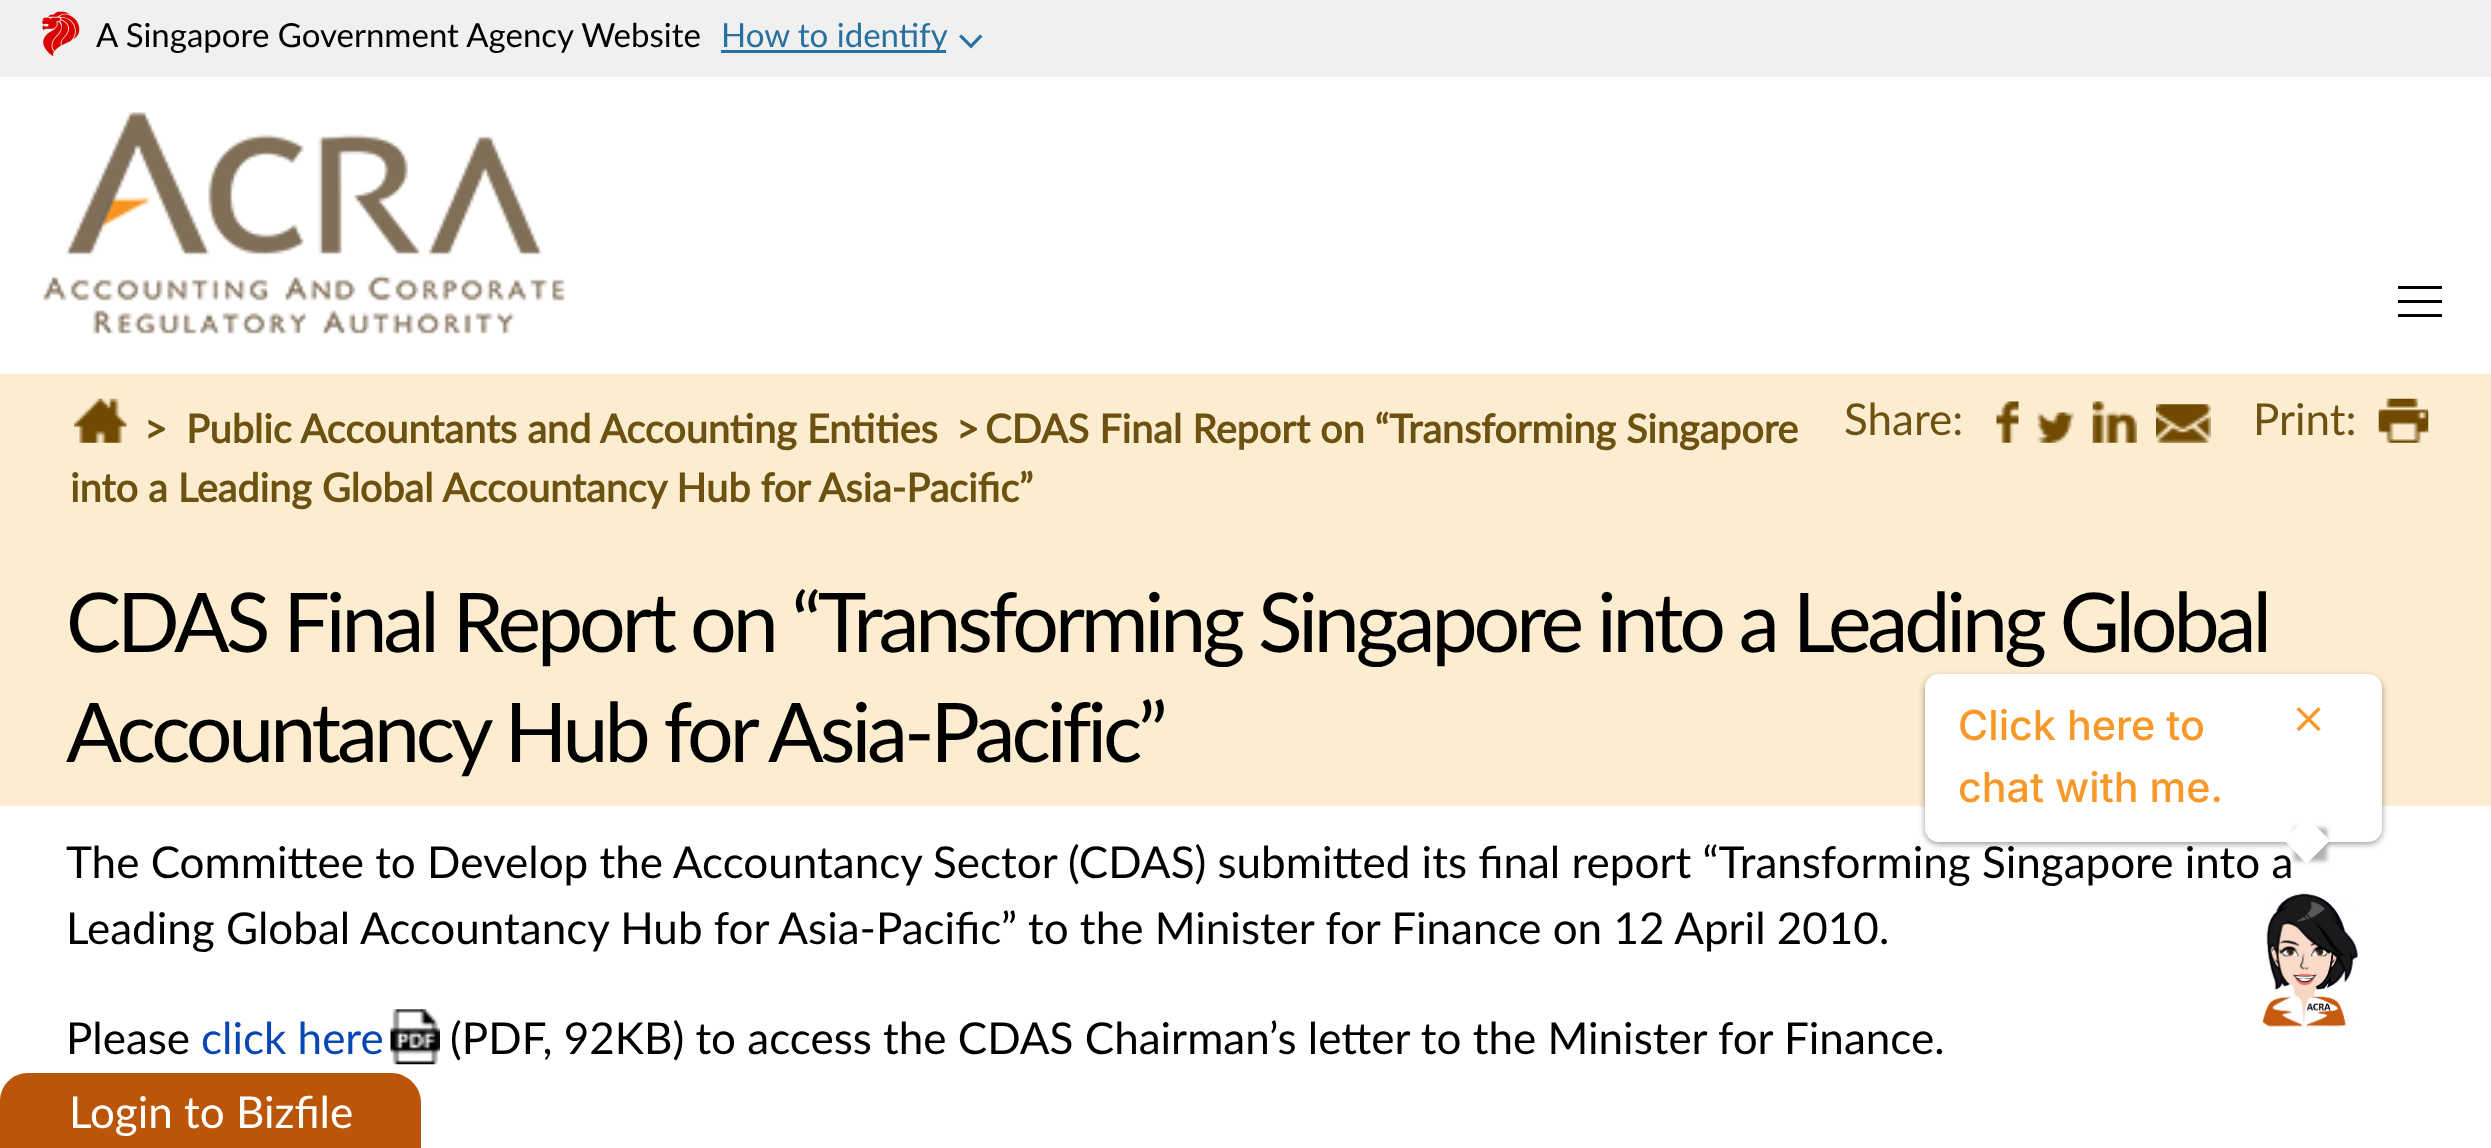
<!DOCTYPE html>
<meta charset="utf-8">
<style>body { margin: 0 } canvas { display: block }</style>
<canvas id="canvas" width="2491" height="1148"></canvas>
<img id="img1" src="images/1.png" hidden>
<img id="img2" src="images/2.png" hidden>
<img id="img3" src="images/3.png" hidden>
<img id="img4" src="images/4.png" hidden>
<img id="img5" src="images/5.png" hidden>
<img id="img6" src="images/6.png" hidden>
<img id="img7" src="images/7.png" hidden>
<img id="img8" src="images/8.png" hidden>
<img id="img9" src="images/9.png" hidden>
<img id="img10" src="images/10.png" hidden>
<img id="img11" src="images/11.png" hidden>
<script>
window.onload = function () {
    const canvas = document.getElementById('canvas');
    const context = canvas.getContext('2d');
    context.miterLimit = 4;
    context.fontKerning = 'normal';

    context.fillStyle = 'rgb(255, 255, 255)';
    context.fillRect(0, 0, 2491, 1148);
    context.fillStyle = 'rgb(240, 240, 240)';
    context.fillRect(0, 0, 2491, 77);
    context.drawImage(document.getElementById('img1'), 42, 11, 38, 46);
    context.fillStyle = 'rgb(39, 112, 160)';
    context.beginPath();
    context.moveTo(968.5, 46);
    context.lineTo(959, 36.5);
    context.lineTo(961.5, 34.5);
    context.lineTo(971, 44);
    context.lineTo(980, 34.5);
    context.lineTo(982.5, 36.5);
    context.lineTo(971, 48.5);
    context.closePath();
    context.fill();
    context.fillRect(721, 50, 225, 3);
    context.drawImage(document.getElementById('img2'), 43, 112, 522, 222);
    context.fillStyle = 'rgb(0, 0, 0)';
    context.fillRect(2398, 286, 44, 3);
    context.fillRect(2398, 300, 44, 3);
    context.fillRect(2398, 314, 44, 3);
    context.fillStyle = 'rgb(252, 237, 208)';
    context.fillRect(0, 374, 2491, 432);
    context.drawImage(document.getElementById('img3'), 74, 398, 53, 45);
    context.drawImage(document.getElementById('img4'), 1996, 401, 23, 42);
    context.drawImage(document.getElementById('img5'), 2037, 412, 37, 31);
    context.drawImage(document.getElementById('img6'), 2092, 401, 45, 42);
    context.drawImage(document.getElementById('img7'), 2156, 404, 55, 39);
    context.drawImage(document.getElementById('img8'), 2378, 398, 51, 45);
    context.fillStyle = 'rgba(0, 0, 0, 0.4)';
    context.filter = 'blur(3px)';
    context.beginPath();
    context.roundRect(1925, 677, 457, 167, 14);
    context.fill();
    context.filter = 'none';
    context.fillStyle = 'rgb(255, 255, 255)';
    context.beginPath();
    context.roundRect(1925, 674, 457, 168, 14);
    context.fill();
    context.drawImage(document.getElementById('img9'), 2296, 707, 25, 25);
    context.save();
    context.beginPath();
    context.moveTo(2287, 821);
    context.lineTo(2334, 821);
    context.lineTo(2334, 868);
    context.lineTo(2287, 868);
    context.closePath();
    context.moveTo(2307, 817);
    context.lineTo(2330, 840.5);
    context.lineTo(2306.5, 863.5);
    context.lineTo(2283.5, 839.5);
    context.closePath();
    context.clip('evenodd');
    context.fillStyle = 'rgba(0, 0, 0, 0.3)';
    context.filter = 'blur(2px)';
    context.beginPath();
    context.rect(2294, 828, 33, 33);
    context.fill();
    context.filter = 'none';
    context.restore();
    context.beginPath();
    context.moveTo(2330, 840.5);
    context.lineTo(2306.5, 863.5);
    context.lineTo(2307, 840);
    context.closePath();
    context.fill();
    context.drawImage(document.getElementById('img10'), 2261, 893, 97, 135);
    context.drawImage(document.getElementById('img11'), 390, 1009, 50, 56);
    context.fillStyle = 'rgb(187, 85, 7)';
    context.beginPath();
    context.moveTo(28, 1073);
    context.lineTo(391, 1073);
    context.bezierCurveTo(407.5, 1073, 421, 1086.5, 421, 1103);
    context.lineTo(421, 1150);
    context.lineTo(0, 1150);
    context.lineTo(0, 1101);
    context.bezierCurveTo(0, 1085.5, 12.5, 1073, 28, 1073);
    context.closePath();
    context.fill();
    context.font = '33px Lato';
    context.fillStyle = 'rgb(0, 0, 0)';
    context.fillText('A Singapore Government Agency Website', 96, 47);
    context.fillStyle = 'rgb(39, 112, 160)';
    context.fillText('How to identify', 721, 47);
    context.font = 'bold 39.6px Lato';
    context.fillStyle = 'rgb(109, 81, 16)';
    context.fillText('>', 144, 443);
    context.fillText('Public Accountants and Accounting Entities', 186, 443);
    context.fillText('>', 956, 443);
    context.fillText('CDAS Final Report on “Transforming Singapore', 985, 443);
    context.fillText('into a Leading Global Accountancy Hub for Asia-Pacific”', 70, 502);
    context.font = '44px Lato';
    context.fillText('Share:', 1844, 435);
    context.fillText('Print:', 2253, 435);
    context.letterSpacing = '-4.12px';
    context.font = '82.5px Lato';
    context.fillStyle = 'rgb(0, 0, 0)';
    context.fillText('CDAS Final Report on “Transforming Singapore into a Leading Global', 66, 652);
    context.fillText('Accountancy Hub for Asia-Pacific”', 66, 762);
    context.letterSpacing = '0px';
    context.font = '500 41.25px Inter';
    context.fillStyle = 'rgb(248, 152, 40)';
    context.fillText('Click here to', 1958, 740);
    context.fillText('chat with me.', 1958, 802);
    context.font = '44px Lato';
    context.fillStyle = 'rgb(0, 0, 0)';
    context.fillText('The Committee to Develop the Accountancy Sector (CDAS) submitted its final report “Transforming Singapore into a', 66, 878);
    context.fillStyle = 'rgb(255, 255, 255)';
    context.beginPath();
    context.moveTo(2306.5, 863.5);
    context.lineTo(2283.5, 839.5);
    context.lineTo(2307, 840);
    context.closePath();
    context.fill();
    context.fillStyle = 'rgb(0, 0, 0)';
    context.fillText('Leading Global Accountancy Hub for Asia-Pacific” to the Minister for Finance on 12 April 2010.', 66, 944);
    context.fillText('Please', 66, 1054);
    context.fillStyle = 'rgb(7, 70, 181)';
    context.fillText('click here', 201, 1054);
    context.fillStyle = 'rgb(0, 0, 0)';
    context.fillText('(PDF, 92KB) to access the CDAS Chairman’s letter to the Minister for Finance.', 450, 1054);
    context.fillStyle = 'rgb(255, 255, 255)';
    context.fillText('Login to Bizfile', 69, 1128);
};
</script>
